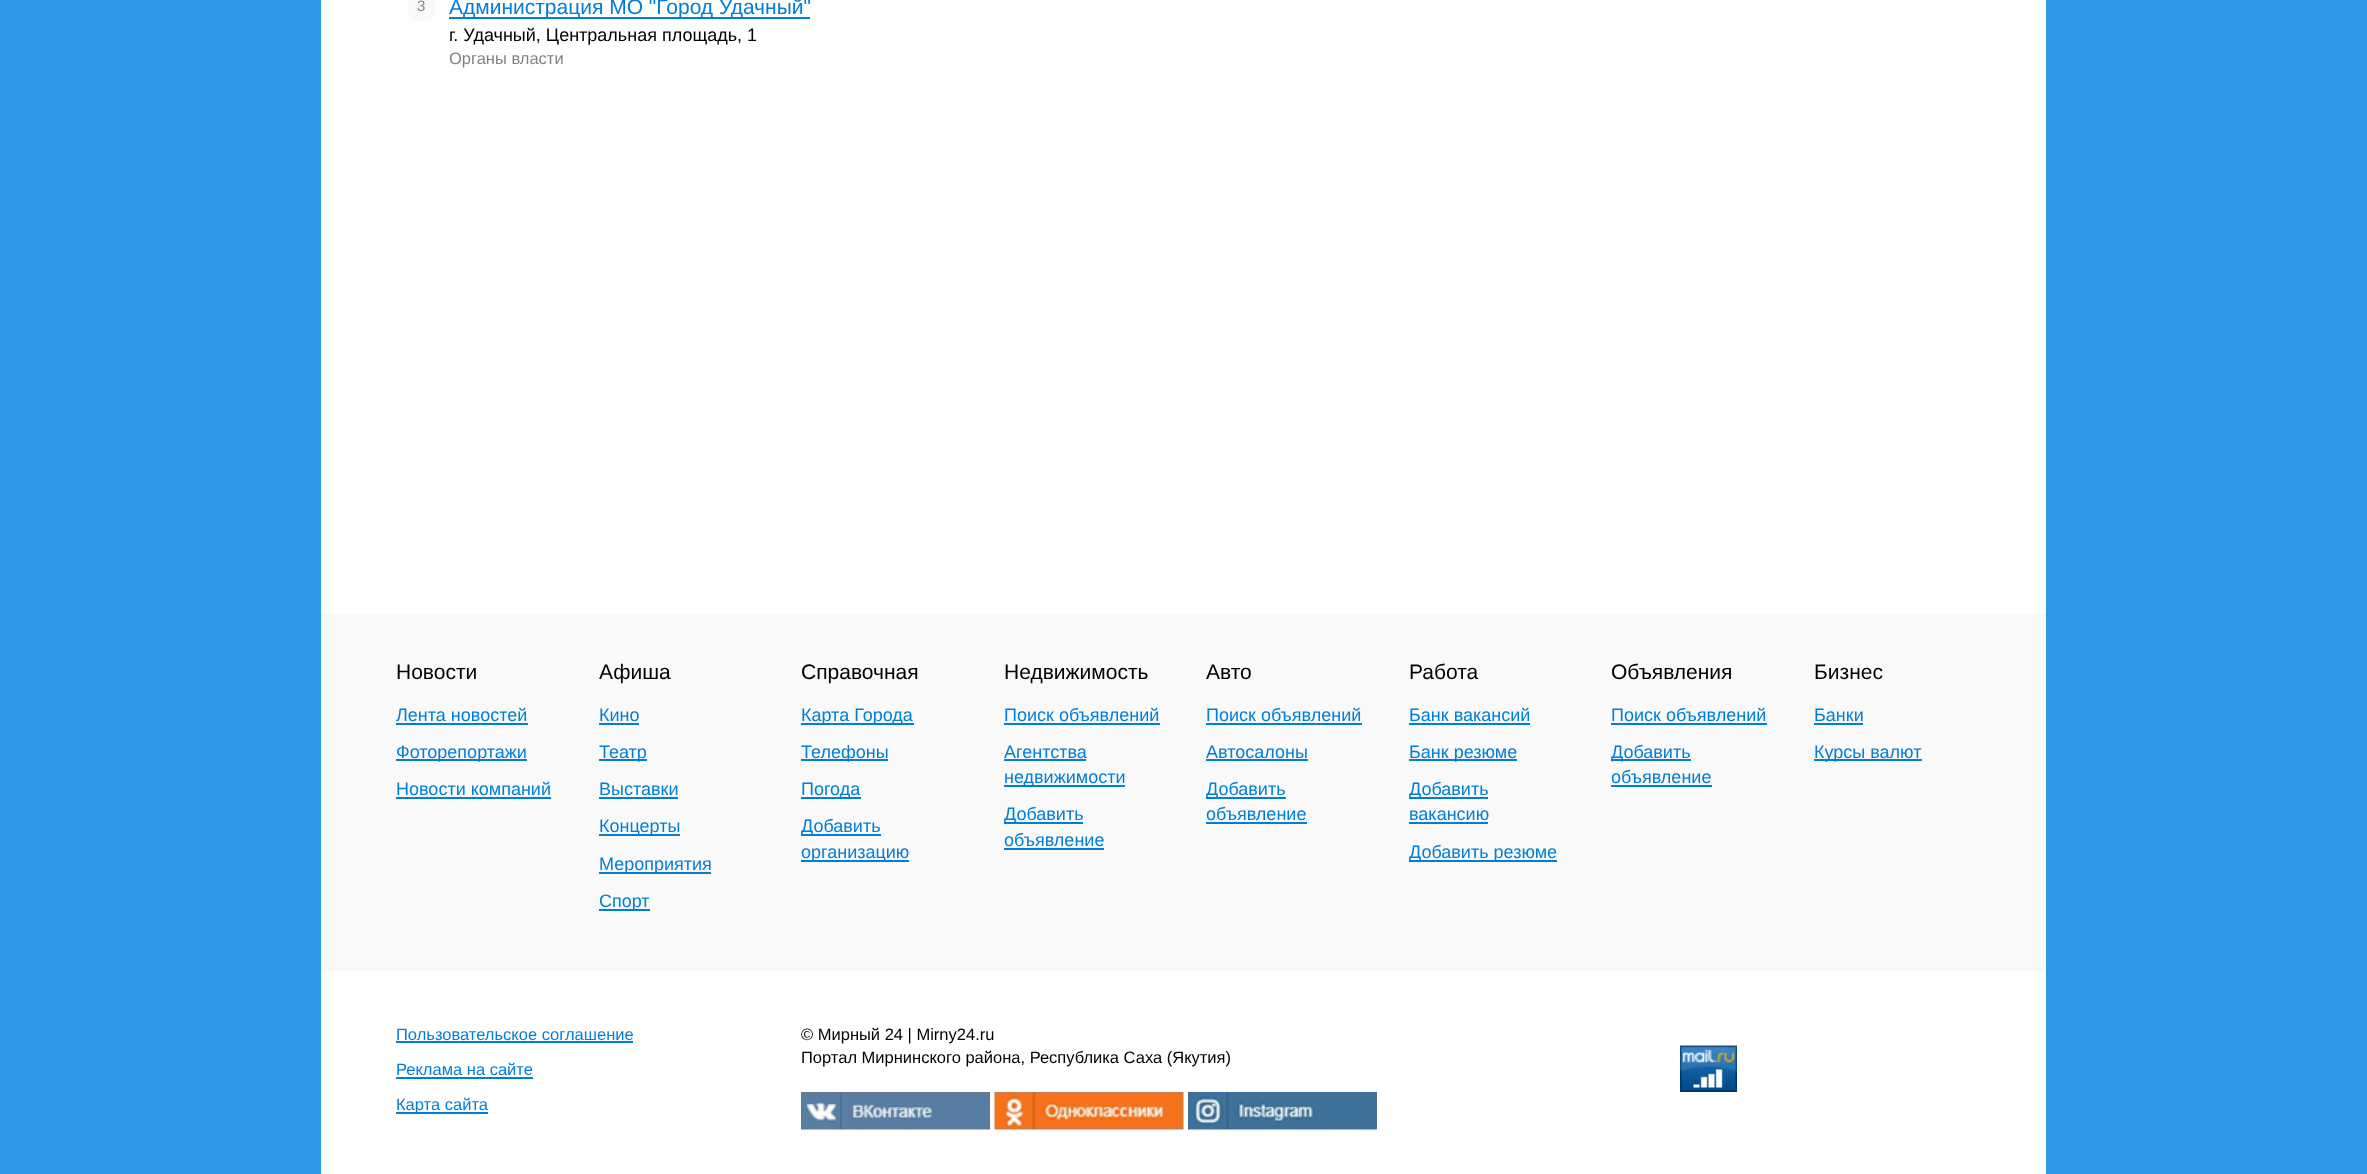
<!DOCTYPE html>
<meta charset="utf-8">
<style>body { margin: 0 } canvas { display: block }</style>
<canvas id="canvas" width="2367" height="1174"></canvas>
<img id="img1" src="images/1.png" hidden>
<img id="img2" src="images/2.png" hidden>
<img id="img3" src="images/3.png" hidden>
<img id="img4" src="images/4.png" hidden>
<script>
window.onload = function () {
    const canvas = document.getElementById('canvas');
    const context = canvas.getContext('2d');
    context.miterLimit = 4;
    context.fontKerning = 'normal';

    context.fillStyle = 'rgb(46, 153, 230)';
    context.fillRect(0, 0, 2367, 1174);
    context.fillStyle = 'rgb(255, 255, 255)';
    context.fillRect(321, 0, 1725, 1174);
    context.fillStyle = 'rgb(249, 249, 249)';
    context.beginPath();
    context.roundRect(408, -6, 27, 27, 9);
    context.fill();
    context.fillStyle = 'rgb(0, 126, 217)';
    context.fillRect(449, 17, 361, 2);
    context.fillStyle = 'rgb(249, 249, 249)';
    context.fillRect(321, 614, 1725, 357);
    context.fillStyle = 'rgb(0, 126, 217)';
    context.fillRect(396, 723, 132, 2);
    context.fillRect(396, 759, 131, 2);
    context.fillRect(396, 797, 155, 2);
    context.fillRect(599, 723, 40, 2);
    context.fillRect(599, 759, 48, 2);
    context.fillRect(599, 797, 79, 2);
    context.fillRect(599, 834, 81, 2);
    context.fillRect(599, 872, 112, 2);
    context.fillRect(599, 909, 51, 2);
    context.fillRect(801, 723, 113, 2);
    context.fillRect(801, 759, 87, 2);
    context.fillRect(801, 797, 60, 2);
    context.fillRect(801, 834, 80, 2);
    context.fillRect(801, 860, 108, 2);
    context.fillRect(1004, 723, 156, 2);
    context.fillRect(1004, 759, 82, 2);
    context.fillRect(1004, 785, 121, 2);
    context.fillRect(1004, 822, 79, 2);
    context.fillRect(1004, 848, 100, 2);
    context.fillRect(1206, 723, 156, 2);
    context.fillRect(1206, 759, 102, 2);
    context.fillRect(1206, 797, 80, 2);
    context.fillRect(1206, 822, 101, 2);
    context.fillRect(1409, 723, 121, 2);
    context.fillRect(1409, 759, 108, 2);
    context.fillRect(1409, 797, 79, 2);
    context.fillRect(1409, 822, 79, 2);
    context.fillRect(1409, 860, 148, 2);
    context.fillRect(1611, 723, 156, 2);
    context.fillRect(1611, 759, 80, 2);
    context.fillRect(1611, 785, 101, 2);
    context.fillRect(1814, 723, 49, 2);
    context.fillRect(1814, 759, 108, 2);
    context.fillRect(396, 1041, 237, 2);
    context.fillRect(396, 1077, 137, 2);
    context.fillRect(396, 1112, 92, 2);
    context.drawImage(document.getElementById('img1'), 801, 1092, 189, 38);
    context.drawImage(document.getElementById('img2'), 994, 1092, 190, 38);
    context.drawImage(document.getElementById('img3'), 1188, 1092, 189, 38);
    context.drawImage(document.getElementById('img4'), 1680, 1045, 57, 47);
    context.font = '15px Liberation Sans';
    context.fillStyle = 'rgb(138, 140, 132)';
    context.fillText('3', 417, 11);
    context.font = '21px Liberation Sans';
    context.fillStyle = 'rgb(0, 126, 217)';
    context.fillText('Администрация МО "Город Удачный"', 449, 14);
    context.font = '18px Liberation Sans';
    context.fillStyle = 'rgb(0, 0, 0)';
    context.fillText('г. Удачный, Центральная площадь, 1', 449, 41);
    context.font = '16.5px Liberation Sans';
    context.fillStyle = 'rgb(131, 131, 131)';
    context.fillText('Органы власти', 449, 64);
    context.font = '21px Liberation Sans';
    context.fillStyle = 'rgb(0, 0, 0)';
    context.fillText('Новости', 396, 679);
    context.font = '18px Liberation Sans';
    context.fillStyle = 'rgb(0, 126, 217)';
    context.fillText('Лента новостей', 396, 721);
    context.fillText('Фоторепортажи', 396, 758);
    context.fillText('Новости компаний', 396, 795);
    context.font = '21px Liberation Sans';
    context.fillStyle = 'rgb(0, 0, 0)';
    context.fillText('Афиша', 599, 679);
    context.font = '18px Liberation Sans';
    context.fillStyle = 'rgb(0, 126, 217)';
    context.fillText('Кино', 599, 721);
    context.fillText('Театр', 599, 758);
    context.fillText('Выставки', 599, 795);
    context.fillText('Концерты', 599, 832);
    context.fillText('Мероприятия', 599, 870);
    context.fillText('Спорт', 599, 907);
    context.font = '21px Liberation Sans';
    context.fillStyle = 'rgb(0, 0, 0)';
    context.fillText('Справочная', 801, 679);
    context.font = '18px Liberation Sans';
    context.fillStyle = 'rgb(0, 126, 217)';
    context.fillText('Карта Города', 801, 721);
    context.fillText('Телефоны', 801, 758);
    context.fillText('Погода', 801, 795);
    context.fillText('Добавить', 801, 832);
    context.fillText('организацию', 801, 858);
    context.font = '21px Liberation Sans';
    context.fillStyle = 'rgb(0, 0, 0)';
    context.fillText('Недвижимость', 1004, 679);
    context.font = '18px Liberation Sans';
    context.fillStyle = 'rgb(0, 126, 217)';
    context.fillText('Поиск объявлений', 1004, 721);
    context.fillText('Агентства', 1004, 758);
    context.fillText('недвижимости', 1004, 783);
    context.fillText('Добавить', 1004, 820);
    context.fillText('объявление', 1004, 846);
    context.font = '21px Liberation Sans';
    context.fillStyle = 'rgb(0, 0, 0)';
    context.fillText('Авто', 1206, 679);
    context.font = '18px Liberation Sans';
    context.fillStyle = 'rgb(0, 126, 217)';
    context.fillText('Поиск объявлений', 1206, 721);
    context.fillText('Автосалоны', 1206, 758);
    context.fillText('Добавить', 1206, 795);
    context.fillText('объявление', 1206, 820);
    context.font = '21px Liberation Sans';
    context.fillStyle = 'rgb(0, 0, 0)';
    context.fillText('Работа', 1409, 679);
    context.font = '18px Liberation Sans';
    context.fillStyle = 'rgb(0, 126, 217)';
    context.fillText('Банк вакансий', 1409, 721);
    context.fillText('Банк резюме', 1409, 758);
    context.fillText('Добавить', 1409, 795);
    context.fillText('вакансию', 1409, 820);
    context.fillText('Добавить резюме', 1409, 858);
    context.font = '21px Liberation Sans';
    context.fillStyle = 'rgb(0, 0, 0)';
    context.fillText('Объявления', 1611, 679);
    context.font = '18px Liberation Sans';
    context.fillStyle = 'rgb(0, 126, 217)';
    context.fillText('Поиск объявлений', 1611, 721);
    context.fillText('Добавить', 1611, 758);
    context.fillText('объявление', 1611, 783);
    context.font = '21px Liberation Sans';
    context.fillStyle = 'rgb(0, 0, 0)';
    context.fillText('Бизнес', 1814, 679);
    context.font = '18px Liberation Sans';
    context.fillStyle = 'rgb(0, 126, 217)';
    context.fillText('Банки', 1814, 721);
    context.fillText('Курсы валют', 1814, 758);
    context.font = '16.5px Liberation Sans';
    context.fillText('Пользовательское соглашение', 396, 1040);
    context.fillText('Реклама на сайте', 396, 1075);
    context.fillText('Карта сайта', 396, 1110);
    context.fillStyle = 'rgb(0, 0, 0)';
    context.fillText('© Мирный 24 | Mirny24.ru', 801, 1040);
    context.fillText('Портал Мирнинского района, Республика Саха (Якутия)', 801, 1063);
};
</script>
